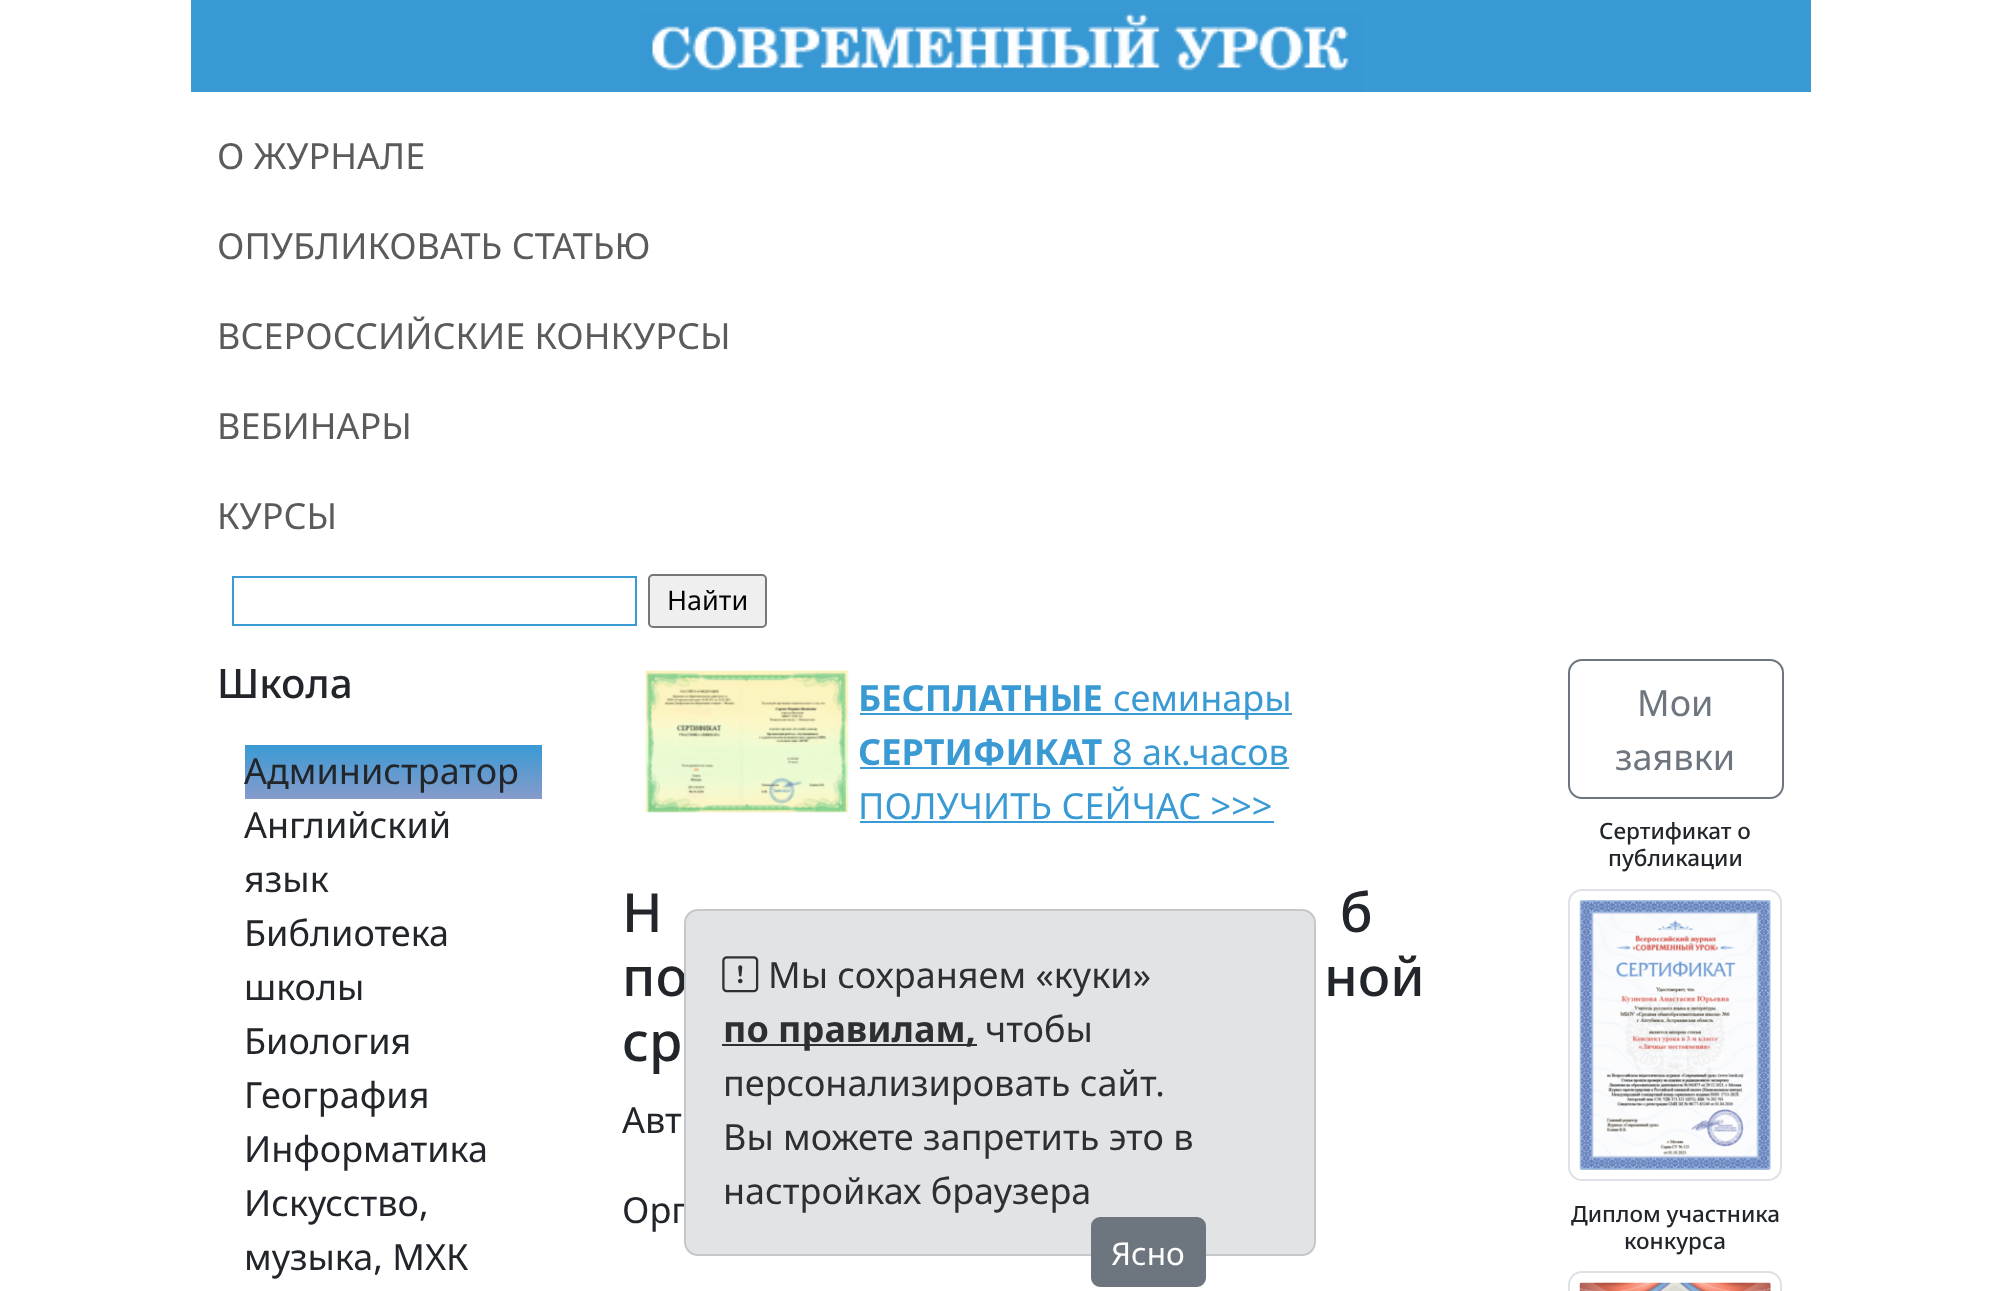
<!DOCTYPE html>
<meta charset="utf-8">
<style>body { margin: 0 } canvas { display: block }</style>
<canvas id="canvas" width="1999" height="1291"></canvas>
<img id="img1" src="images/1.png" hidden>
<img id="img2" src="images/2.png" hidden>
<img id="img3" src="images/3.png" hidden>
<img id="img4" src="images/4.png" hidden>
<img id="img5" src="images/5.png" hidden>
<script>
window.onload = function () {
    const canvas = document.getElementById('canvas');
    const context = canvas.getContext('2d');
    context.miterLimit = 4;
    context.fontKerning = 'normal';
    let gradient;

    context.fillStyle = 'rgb(255, 255, 255)';
    context.fillRect(0, 0, 1999, 1291);
    context.fillStyle = 'rgb(58, 154, 212)';
    context.fillRect(191, 0, 1620, 92);
    context.drawImage(document.getElementById('img1'), 639, 13, 725, 79);
    context.strokeStyle = 'rgb(58, 154, 212)';
    context.lineWidth = 2;
    context.strokeRect(233, 577, 403, 48);
    context.fillStyle = 'rgb(239, 239, 239)';
    context.beginPath();
    context.roundRect(649, 575, 117, 52, 4);
    context.fill();
    context.strokeStyle = 'rgb(119, 119, 119)';
    context.stroke();
    gradient = context.createLinearGradient(394, 745, 394, 799);
    gradient.addColorStop(0, 'rgb(58, 154, 212)');
    gradient.addColorStop(1, 'rgb(134, 155, 203)');
    context.fillStyle = gradient;
    context.fillRect(245, 745, 297, 54);
    context.drawImage(document.getElementById('img2'), 645, 670, 204, 143);
    context.fillStyle = 'rgb(58, 154, 212)';
    context.fillRect(860, 713, 432, 2);
    context.fillRect(860, 767, 429, 2);
    context.fillRect(860, 821, 414, 2);
    context.beginPath();
    context.roundRect(1569, 660, 214, 138, 13);
    context.strokeStyle = 'rgb(109, 118, 126)';
    context.stroke();
    context.beginPath();
    context.roundRect(1569, 890, 212, 290, 13);
    context.strokeStyle = 'rgb(222, 226, 230)';
    context.stroke();
    context.drawImage(document.getElementById('img3'), 1579, 900, 192, 270);
    context.beginPath();
    context.roundRect(1569, 1272, 212, 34, 13);
    context.stroke();
    context.drawImage(document.getElementById('img4'), 1579, 1282, 192, 9);
    context.font = '36px Noto Sans';
    context.fillStyle = 'rgb(91, 91, 91)';
    context.fillText('О ЖУРНАЛЕ', 217, 169);
    context.fillText('ОПУБЛИКОВАТЬ СТАТЬЮ', 217, 259);
    context.fillText('ВСЕРОССИЙСКИЕ КОНКУРСЫ', 217, 349);
    context.fillText('ВЕБИНАРЫ', 217, 439);
    context.fillText('КУРСЫ', 217, 529);
    context.font = '27px Noto Sans';
    context.fillStyle = 'rgb(2, 2, 2)';
    context.fillText('Найти', 667, 610);
    context.font = '500 40.5px Noto Sans';
    context.fillStyle = 'rgb(34, 38, 42)';
    context.fillText('Школа', 217, 698);
    context.font = '36px Noto Sans';
    context.fillText('Администратор', 244, 784);
    context.fillText('Английский', 244, 838);
    context.fillText('язык', 244, 892);
    context.fillText('Библиотека', 244, 946);
    context.fillText('школы', 244, 1000);
    context.fillText('Биология', 244, 1054);
    context.fillText('География', 244, 1108);
    context.fillText('Информатика', 244, 1162);
    context.fillText('Искусство,', 244, 1216);
    context.fillText('музыка, МХК', 244, 1270);
    context.font = 'bold 36px Noto Sans';
    context.fillStyle = 'rgb(58, 154, 212)';
    context.fillText('БЕСПЛАТНЫЕ', 858, 711);
    context.font = '36px Noto Sans';
    context.fillText('семинары', 1113, 711);
    context.font = 'bold 36px Noto Sans';
    context.fillText('СЕРТИФИКАТ', 858, 765);
    context.font = '36px Noto Sans';
    context.fillText('8 ак.часов', 1112, 765);
    context.fillText('ПОЛУЧИТЬ СЕЙЧАС >>>', 858, 819);
    context.font = '500 54px Noto Sans';
    context.fillStyle = 'rgb(34, 38, 42)';
    context.fillText('Н', 622, 932);
    context.fillText('б', 1340, 932);
    context.fillText('по', 622, 996);
    context.fillText('ной', 1324, 996);
    context.fillText('ср', 622, 1061);
    context.font = '36px Noto Sans';
    context.fillText('Авт', 622, 1133);
    context.fillText('Орг', 622, 1223);
    context.fillStyle = 'rgb(109, 118, 126)';
    context.fillText('Мои', 1637, 716);
    context.fillText('заявки', 1615, 770);
    context.font = '500 22.5px Noto Sans';
    context.fillStyle = 'rgb(34, 38, 42)';
    context.fillText('Сертификат о', 1599, 839);
    context.fillText('публикации', 1608, 866);
    context.fillText('Диплом участника', 1571, 1222);
    context.fillText('конкурса', 1624, 1249);
    context.fillStyle = 'rgb(226, 227, 229)';
    context.beginPath();
    context.roundRect(685, 910, 630, 345, 13);
    context.fill();
    context.strokeStyle = 'rgb(196, 200, 203)';
    context.stroke();
    context.drawImage(document.getElementById('img5'), 722, 956, 37, 37);
    context.font = '36px Noto Sans';
    context.fillStyle = 'rgb(44, 48, 51)';
    context.fillText('Мы сохраняем «куки»', 768, 988);
    context.fillRect(722, 1044, 255, 2);
    context.font = 'bold 36px Noto Sans';
    context.fillText('по правилам,', 723, 1042);
    context.font = '36px Noto Sans';
    context.fillText('чтобы', 985, 1042);
    context.fillText('персонализировать сайт.', 723, 1096);
    context.fillText('Вы можете запретить это в', 723, 1150);
    context.fillText('настройках браузера', 723, 1204);
    context.fillStyle = 'rgb(109, 118, 126)';
    context.beginPath();
    context.roundRect(1092, 1218, 113, 68, 8);
    context.fill();
    context.strokeStyle = 'rgb(109, 118, 126)';
    context.stroke();
    context.font = '31.5px Noto Sans';
    context.fillStyle = 'rgb(255, 255, 255)';
    context.fillText('Ясно', 1111, 1265);
};
</script>
